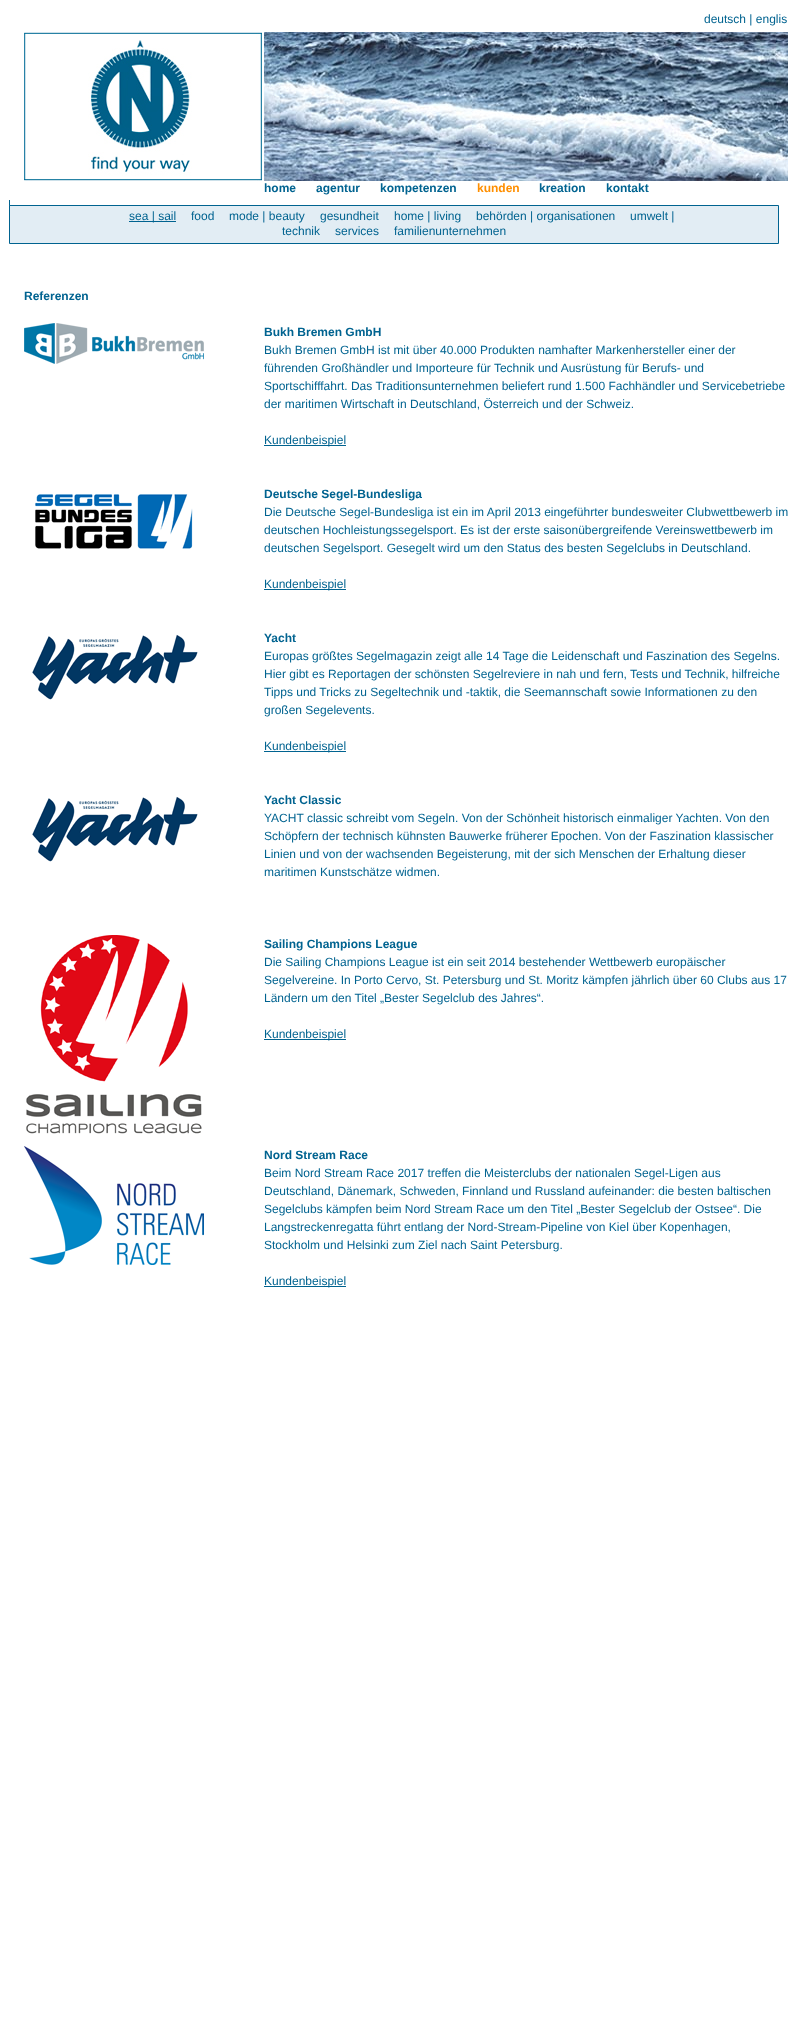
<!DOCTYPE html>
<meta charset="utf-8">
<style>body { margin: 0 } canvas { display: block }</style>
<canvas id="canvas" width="788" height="2031"></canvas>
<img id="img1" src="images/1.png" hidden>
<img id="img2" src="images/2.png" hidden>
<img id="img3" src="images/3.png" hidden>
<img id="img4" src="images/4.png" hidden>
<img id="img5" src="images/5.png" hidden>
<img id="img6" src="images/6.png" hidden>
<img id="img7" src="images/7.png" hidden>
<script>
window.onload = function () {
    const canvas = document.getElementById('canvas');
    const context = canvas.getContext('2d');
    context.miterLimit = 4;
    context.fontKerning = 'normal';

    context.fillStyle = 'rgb(255, 255, 255)';
    context.fillRect(0, 0, 788, 2031);
    context.drawImage(document.getElementById('img1'), 24, 32, 238, 149);
    context.drawImage(document.getElementById('img2'), 264, 32, 524, 149);
    context.drawImage(document.getElementById('img3'), 24, 323, 180, 41);
    context.fillStyle = 'rgb(0, 99, 144)';
    context.fillRect(264, 445, 82, 1);
    context.drawImage(document.getElementById('img4'), 35, 494, 158, 55);
    context.fillRect(264, 589, 82, 1);
    context.drawImage(document.getElementById('img5'), 32, 634, 166, 66);
    context.fillRect(264, 751, 82, 1);
    context.drawImage(document.getElementById('img5'), 32, 796, 166, 66);
    context.drawImage(document.getElementById('img6'), 26, 935, 176, 199);
    context.fillRect(264, 1039, 82, 1);
    context.drawImage(document.getElementById('img7'), 24, 1146, 180, 119);
    context.fillRect(264, 1286, 82, 1);
    context.fillRect(9, 200, 1, 6);
    context.fillStyle = 'rgb(226, 237, 244)';
    context.beginPath();
    context.rect(9.5, 205.5, 769, 38);
    context.fill();
    context.strokeStyle = 'rgb(0, 99, 144)';
    context.stroke();
    context.fillStyle = 'rgb(0, 99, 144)';
    context.fillRect(129, 221, 47, 1);
    context.font = '12px Liberation Sans';
    context.fillText('deutsch | englis', 704, 23);
    context.font = 'bold 12px Liberation Sans';
    context.fillText('home', 264, 192);
    context.fillText('agentur', 316, 192);
    context.fillText('kompetenzen', 380, 192);
    context.fillStyle = 'rgb(255, 143, 0)';
    context.fillText('kunden', 477, 192);
    context.fillStyle = 'rgb(0, 99, 144)';
    context.fillText('kreation', 539, 192);
    context.fillText('kontakt', 606, 192);
    context.fillText('Referenzen', 24, 300);
    context.fillText('Bukh Bremen GmbH', 264, 336);
    context.font = '12px Liberation Sans';
    context.fillText('Bukh Bremen GmbH ist mit über 40.000 Produkten namhafter Markenhersteller einer der', 264, 354);
    context.fillText('führenden Großhändler und Importeure für Technik und Ausrüstung für Berufs- und', 264, 372);
    context.fillText('Sportschifffahrt. Das Traditionsunternehmen beliefert rund 1.500 Fachhändler und Servicebetriebe', 264, 390);
    context.fillText('der maritimen Wirtschaft in Deutschland, Österreich und der Schweiz.', 264, 408);
    context.fillText('Kundenbeispiel', 264, 444);
    context.font = 'bold 12px Liberation Sans';
    context.fillText('Deutsche Segel-Bundesliga', 264, 498);
    context.font = '12px Liberation Sans';
    context.fillText('Die Deutsche Segel-Bundesliga ist ein im April 2013 eingeführter bundesweiter Clubwettbewerb im', 264, 516);
    context.fillText('deutschen Hochleistungssegelsport. Es ist der erste saisonübergreifende Vereinswettbewerb im', 264, 534);
    context.fillText('deutschen Segelsport. Gesegelt wird um den Status des besten Segelclubs in Deutschland.', 264, 552);
    context.fillText('Kundenbeispiel', 264, 588);
    context.font = 'bold 12px Liberation Sans';
    context.fillText('Yacht', 264, 642);
    context.font = '12px Liberation Sans';
    context.fillText('Europas größtes Segelmagazin zeigt alle 14 Tage die Leidenschaft und Faszination des Segelns.', 264, 660);
    context.fillText('Hier gibt es Reportagen der schönsten Segelreviere in nah und fern, Tests und Technik, hilfreiche', 264, 678);
    context.fillText('Tipps und Tricks zu Segeltechnik und -taktik, die Seemannschaft sowie Informationen zu den', 264, 696);
    context.fillText('großen Segelevents.', 264, 714);
    context.fillText('Kundenbeispiel', 264, 750);
    context.font = 'bold 12px Liberation Sans';
    context.fillText('Yacht Classic', 264, 804);
    context.font = '12px Liberation Sans';
    context.fillText('YACHT classic schreibt vom Segeln. Von der Schönheit historisch einmaliger Yachten. Von den', 264, 822);
    context.fillText('Schöpfern der technisch kühnsten Bauwerke früherer Epochen. Von der Faszination klassischer', 264, 840);
    context.fillText('Linien und von der wachsenden Begeisterung, mit der sich Menschen der Erhaltung dieser', 264, 858);
    context.fillText('maritimen Kunstschätze widmen.', 264, 876);
    context.font = 'bold 12px Liberation Sans';
    context.fillText('Sailing Champions League', 264, 948);
    context.font = '12px Liberation Sans';
    context.fillText('Die Sailing Champions League ist ein seit 2014 bestehender Wettbewerb europäischer', 264, 966);
    context.fillText('Segelvereine. In Porto Cervo, St. Petersburg und St. Moritz kämpfen jährlich über 60 Clubs aus 17', 264, 984);
    context.fillText('Ländern um den Titel „Bester Segelclub des Jahres“.', 264, 1002);
    context.fillText('Kundenbeispiel', 264, 1038);
    context.font = 'bold 12px Liberation Sans';
    context.fillText('Nord Stream Race', 264, 1159);
    context.font = '12px Liberation Sans';
    context.fillText('Beim Nord Stream Race 2017 treffen die Meisterclubs der nationalen Segel-Ligen aus', 264, 1177);
    context.fillText('Deutschland, Dänemark, Schweden, Finnland und Russland aufeinander: die besten baltischen', 264, 1195);
    context.fillText('Segelclubs kämpfen beim Nord Stream Race um den Titel „Bester Segelclub der Ostsee“. Die', 264, 1213);
    context.fillText('Langstreckenregatta führt entlang der Nord-Stream-Pipeline von Kiel über Kopenhagen,', 264, 1231);
    context.fillText('Stockholm und Helsinki zum Ziel nach Saint Petersburg.', 264, 1249);
    context.fillText('Kundenbeispiel', 264, 1285);
    context.fillText('sea | sail', 129, 220);
    context.fillText('food', 191, 220);
    context.fillText('mode | beauty', 229, 220);
    context.fillText('gesundheit', 320, 220);
    context.fillText('home | living', 394, 220);
    context.fillText('behörden | organisationen', 476, 220);
    context.fillText('umwelt |', 630, 220);
    context.fillText('technik', 282, 235);
    context.fillText('services', 335, 235);
    context.fillText('familienunternehmen', 394, 235);
};
</script>
